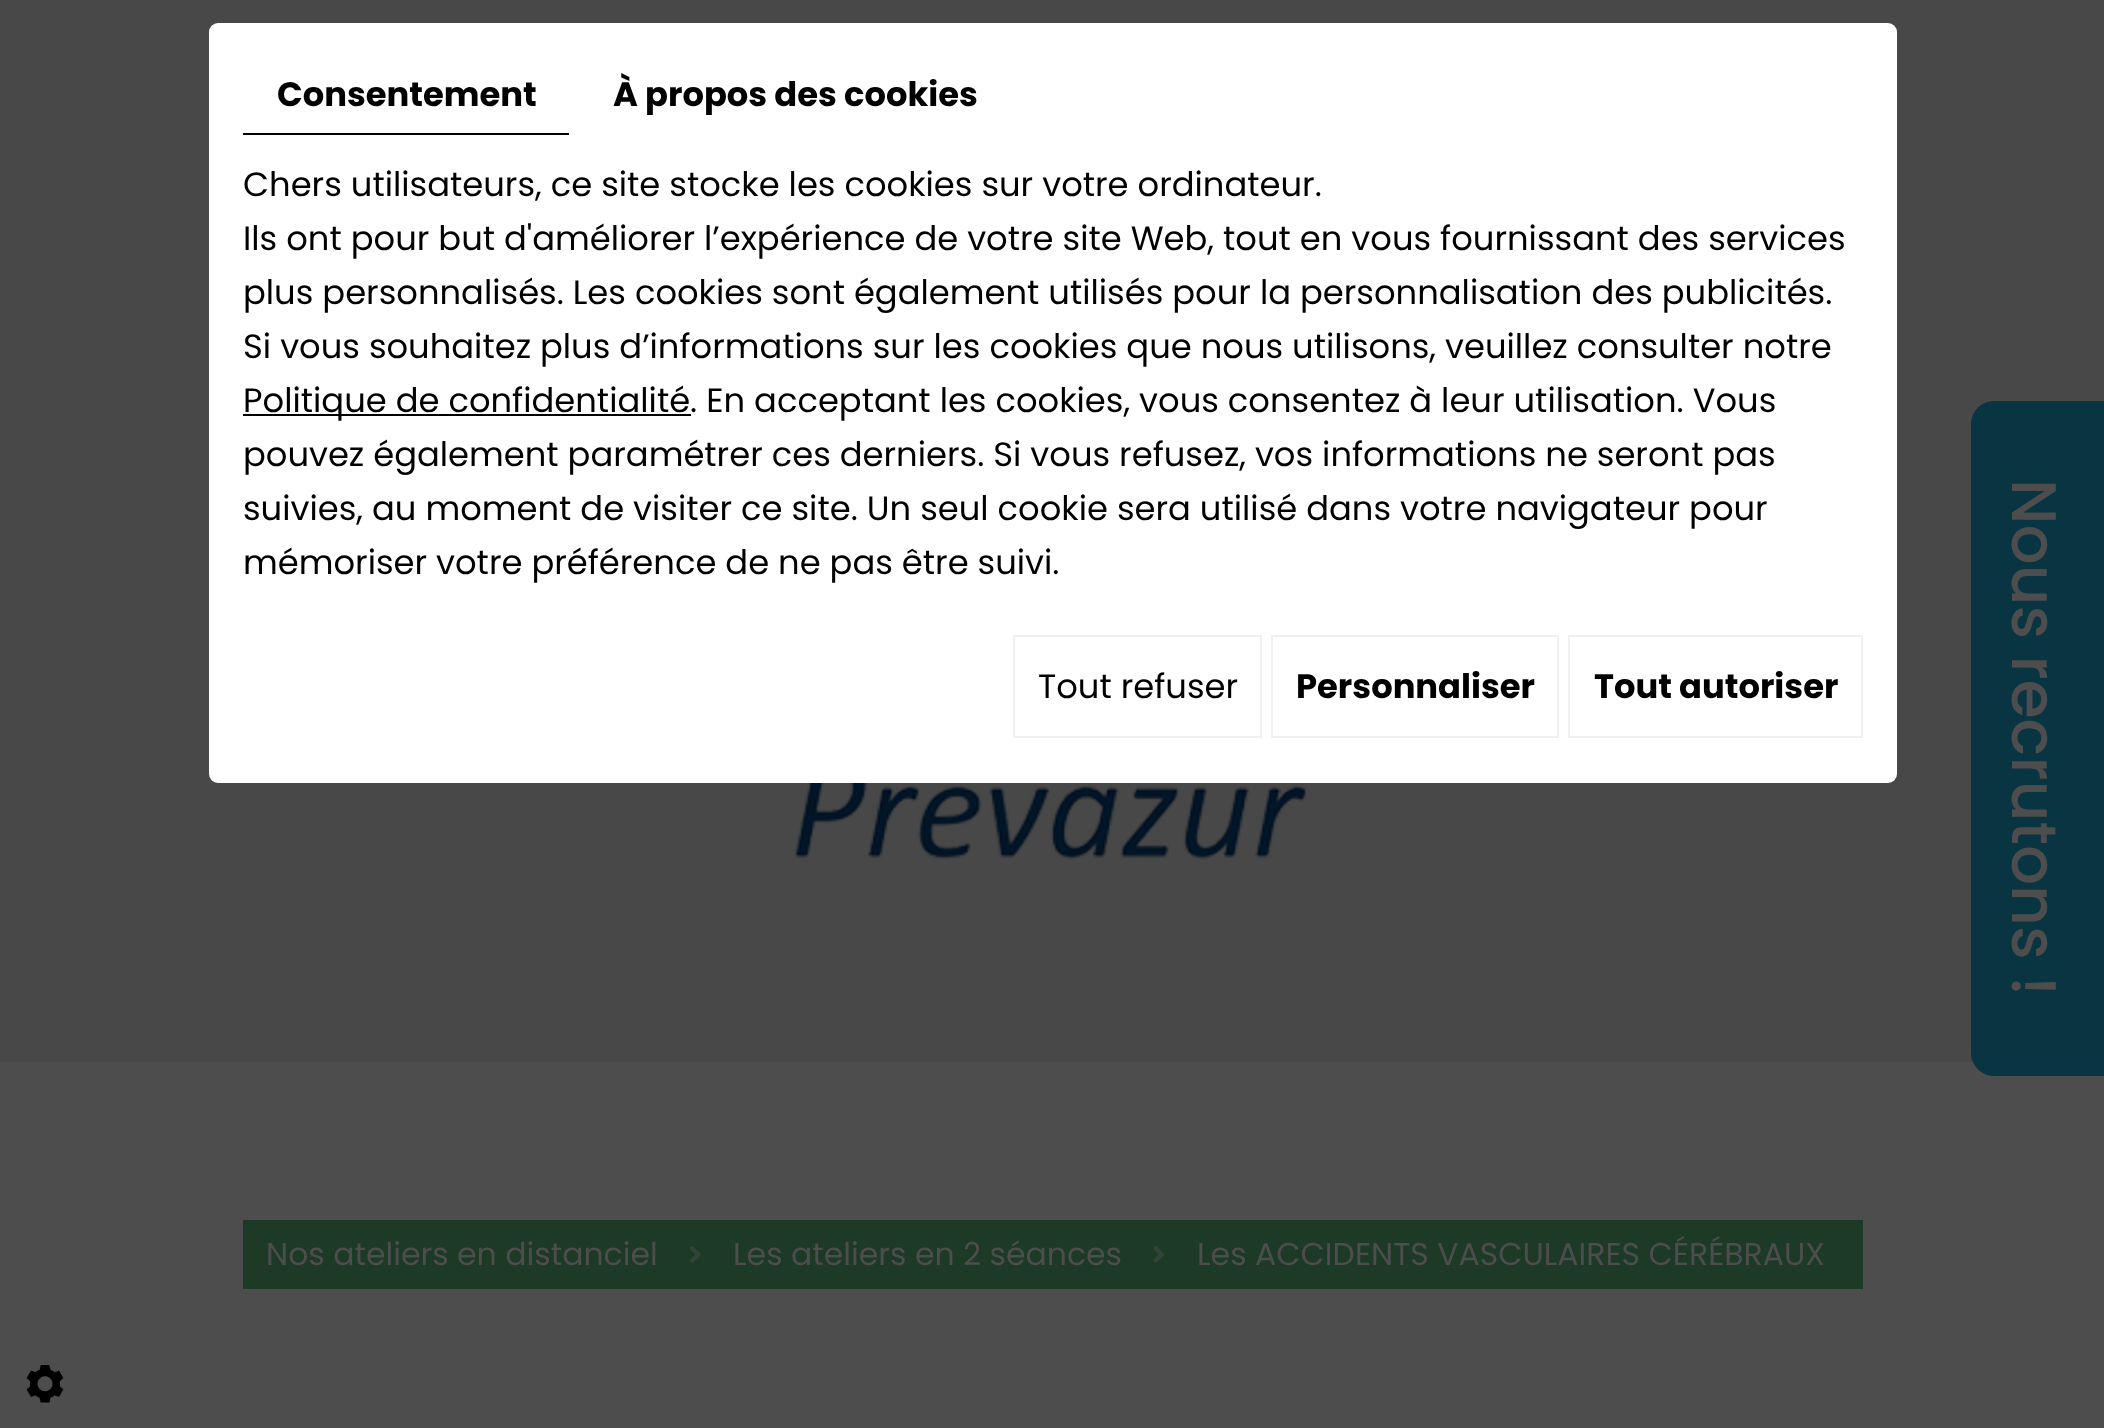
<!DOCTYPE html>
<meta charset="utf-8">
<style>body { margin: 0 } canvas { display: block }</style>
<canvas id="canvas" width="2104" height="1428"></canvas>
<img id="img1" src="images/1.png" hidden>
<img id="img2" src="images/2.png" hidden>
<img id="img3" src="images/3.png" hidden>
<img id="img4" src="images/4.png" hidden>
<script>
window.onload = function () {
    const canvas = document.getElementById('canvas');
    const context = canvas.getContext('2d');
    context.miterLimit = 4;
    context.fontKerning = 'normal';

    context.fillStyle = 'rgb(77, 77, 77)';
    context.fillRect(0, 0, 2104, 1428);
    context.fillStyle = 'rgb(72, 72, 73)';
    context.fillRect(0, 0, 2104, 1062);
    context.fillStyle = 'rgb(255, 255, 255)';
    context.beginPath();
    context.roundRect(209, 23, 1688, 760, 9);
    context.fill();
    context.fillStyle = 'rgb(0, 0, 0)';
    context.fillRect(243, 133, 326, 2);
    context.fillRect(243, 414, 448, 2);
    context.strokeStyle = 'rgb(240, 240, 240)';
    context.lineWidth = 2;
    context.strokeRect(1014, 636, 247, 101);
    context.strokeRect(1272, 636, 286, 101);
    context.strokeRect(1569, 636, 293, 101);
    context.drawImage(document.getElementById('img1'), 793, 783, 515, 77);
    context.fillStyle = 'rgb(8, 53, 65)';
    context.beginPath();
    context.moveTo(1994, 401);
    context.lineTo(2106, 401);
    context.lineTo(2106, 1076);
    context.lineTo(1994, 1076);
    context.bezierCurveTo(1981.5, 1076, 1971, 1065.5, 1971, 1053);
    context.lineTo(1971, 424);
    context.bezierCurveTo(1971, 411.5, 1981.5, 401, 1994, 401);
    context.closePath();
    context.fill();
    context.fillStyle = 'rgb(28, 58, 38)';
    context.fillRect(243, 1220, 1620, 69);
    context.drawImage(document.getElementById('img2'), 689, 1246, 12, 17);
    context.drawImage(document.getElementById('img3'), 1153, 1246, 12, 17);
    context.drawImage(document.getElementById('img4'), 26, 1365, 38, 38);
    context.font = 'bold 33.75px Poppins';
    context.fillStyle = 'rgb(0, 0, 0)';
    context.fillText('Consentement', 277, 106);
    context.fillText('À propos des cookies', 613, 106);
    context.font = '33.75px Poppins';
    context.fillText('Chers utilisateurs, ce site stocke les cookies sur votre ordinateur.', 243, 196);
    context.fillText('Ils ont pour but d\'améliorer l’expérience de votre site Web, tout en vous fournissant des services', 243, 250);
    context.fillText('plus personnalisés. Les cookies sont également utilisés pour la personnalisation des publicités.', 243, 304);
    context.fillText('Si vous souhaitez plus d’informations sur les cookies que nous utilisons, veuillez consulter notre', 243, 358);
    context.fillText('Politique de confidentialité. En acceptant les cookies, vous consentez à leur utilisation. Vous', 243, 412);
    context.fillText('pouvez également paramétrer ces derniers. Si vous refusez, vos informations ne seront pas', 243, 466);
    context.fillText('suivies, au moment de visiter ce site. Un seul cookie sera utilisé dans votre navigateur pour', 243, 520);
    context.fillText('mémoriser votre préférence de ne pas être suivi.', 243, 574);
    context.fillText('Tout refuser', 1038, 698);
    context.font = 'bold 33.75px Poppins';
    context.fillText('Personnaliser', 1296, 698);
    context.fillText('Tout autoriser', 1594, 698);
    context.font = '500 63px Poppins';
    context.fillStyle = 'rgb(77, 77, 77)';
    context.save();
    context.translate(2012, 479);
    context.rotate(90 * Math.PI / 180);
    context.fillText('Nous recrutons !', 0, 0);
    context.restore();
    context.font = '31.5px Poppins';
    context.fillText('Nos ateliers en distanciel', 266, 1265);
    context.fillText('Les ateliers en 2 séances', 733, 1265);
    context.fillText('Les ACCIDENTS VASCULAIRES CÉRÉBRAUX', 1197, 1265);
};
</script>
